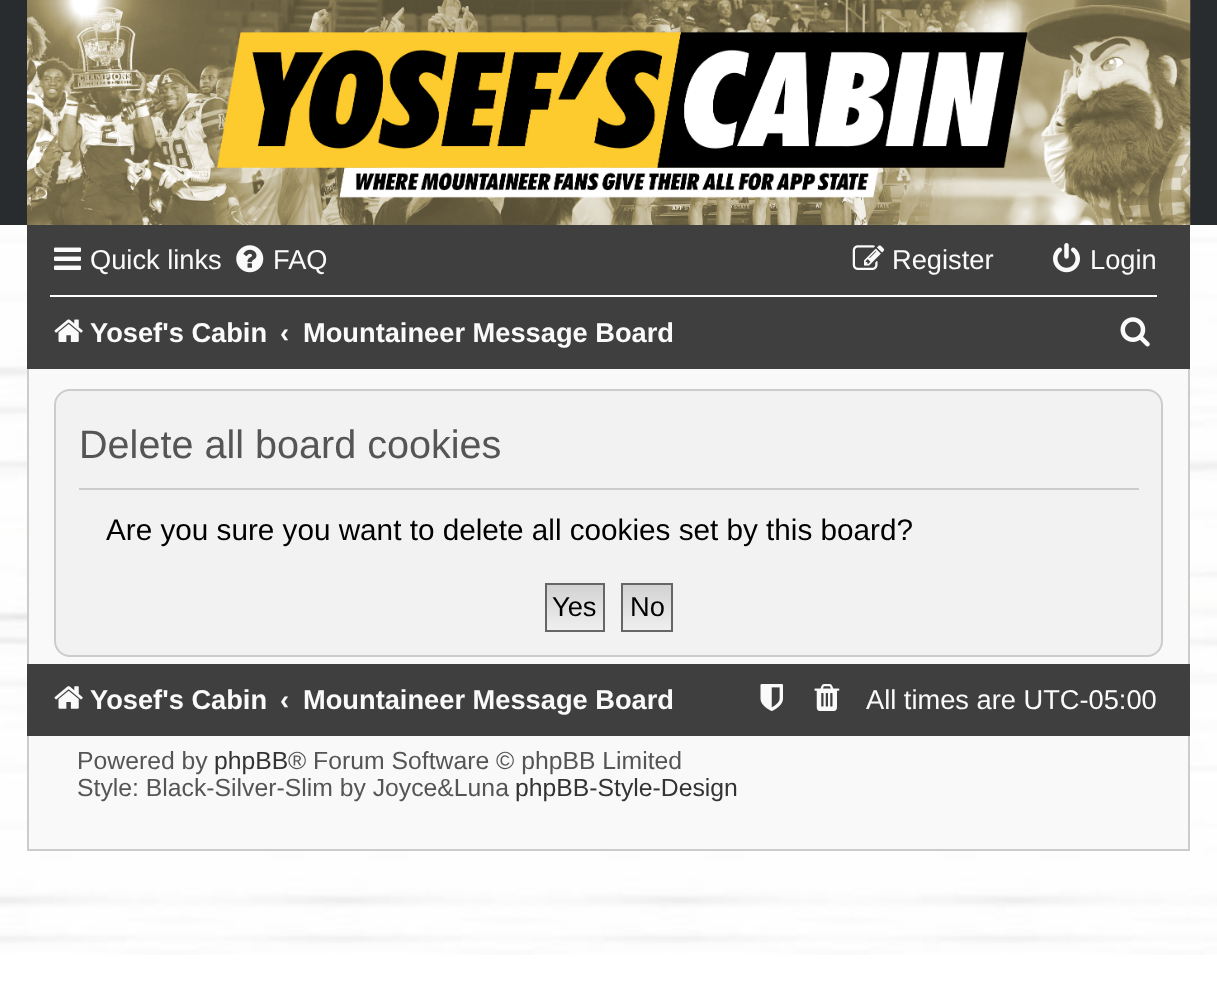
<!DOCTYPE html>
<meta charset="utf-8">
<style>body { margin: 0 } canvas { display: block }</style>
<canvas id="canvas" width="1217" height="983"></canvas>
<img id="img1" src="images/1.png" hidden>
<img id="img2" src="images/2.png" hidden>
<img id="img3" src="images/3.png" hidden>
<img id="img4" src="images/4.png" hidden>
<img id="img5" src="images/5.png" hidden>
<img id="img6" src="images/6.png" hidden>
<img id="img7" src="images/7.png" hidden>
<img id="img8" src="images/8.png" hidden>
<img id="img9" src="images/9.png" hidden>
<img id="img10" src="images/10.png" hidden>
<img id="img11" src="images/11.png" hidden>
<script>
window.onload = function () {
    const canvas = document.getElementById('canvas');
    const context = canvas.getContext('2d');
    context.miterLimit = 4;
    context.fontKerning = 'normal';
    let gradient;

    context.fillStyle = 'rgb(255, 255, 255)';
    context.fillRect(0, 0, 1217, 983);
    context.drawImage(document.getElementById('img1'), 0, 225, 1217, 730);
    context.fillStyle = 'rgb(41, 44, 47)';
    context.fillRect(0, 0, 1217, 225);
    context.drawImage(document.getElementById('img2'), 27, 0, 1164, 225);
    context.fillStyle = 'rgb(249, 249, 249)';
    context.fillRect(29, 369, 1159, 480);
    context.strokeStyle = 'rgb(204, 204, 204)';
    context.lineWidth = 2;
    context.strokeRect(28, 226, 1161, 624);
    context.fillStyle = 'rgb(63, 63, 63)';
    context.fillRect(27, 225, 1163, 144);
    context.drawImage(document.getElementById('img3'), 54, 247, 27, 23);
    context.drawImage(document.getElementById('img4'), 236, 245, 28, 28);
    context.drawImage(document.getElementById('img5'), 852, 245, 33, 25);
    context.drawImage(document.getElementById('img6'), 1053, 243, 27, 30);
    context.fillStyle = 'rgb(255, 255, 255)';
    context.fillRect(50, 295, 1107, 2);
    context.drawImage(document.getElementById('img7'), 54, 319, 29, 23);
    context.drawImage(document.getElementById('img8'), 1120, 317, 30, 30);
    context.fillStyle = 'rgb(242, 242, 242)';
    context.beginPath();
    context.roundRect(55, 390, 1107, 266, 15);
    context.fill();
    context.stroke();
    context.fillStyle = 'rgb(204, 204, 204)';
    context.fillRect(79, 488, 1060, 2);
    gradient = context.createLinearGradient(575, 585, 575, 630);
    gradient.addColorStop(0, 'rgb(210, 210, 210)');
    gradient.addColorStop(1, 'rgb(239, 239, 239)');
    context.fillStyle = gradient;
    context.fillRect(547, 585, 56, 45);
    context.strokeStyle = 'rgb(102, 102, 102)';
    context.strokeRect(546, 584, 58, 47);
    gradient = context.createLinearGradient(647, 585, 647, 630);
    gradient.addColorStop(0, 'rgb(210, 210, 210)');
    gradient.addColorStop(1, 'rgb(239, 239, 239)');
    context.fillStyle = gradient;
    context.fillRect(623, 585, 48, 45);
    context.strokeRect(622, 584, 50, 47);
    context.fillStyle = 'rgb(63, 63, 63)';
    context.fillRect(27, 664, 1163, 72);
    context.drawImage(document.getElementById('img9'), 54, 686, 29, 23);
    context.drawImage(document.getElementById('img10'), 760, 684, 23, 27);
    context.drawImage(document.getElementById('img11'), 814, 684, 26, 27);
    context.font = '27.25px Liberation Sans';
    context.fillStyle = 'rgb(250, 250, 250)';
    context.fillText('Quick links', 90, 269);
    context.fillText('FAQ', 273, 269);
    context.fillText('Register', 892, 269);
    context.fillText('Login', 1090, 269);
    context.font = 'bold 27.25px Liberation Sans';
    context.fillText('Yosef\'s Cabin', 90, 342);
    context.fillText('‹', 280, 342);
    context.fillText('Mountaineer Message Board', 303, 342);
    context.font = '39.6px Liberation Sans';
    context.fillStyle = 'rgb(85, 85, 85)';
    context.fillText('Delete all board cookies', 79, 458);
    context.font = '29.7px Liberation Sans';
    context.fillStyle = 'rgb(0, 0, 0)';
    context.fillText('Are you sure you want to delete all cookies set by this board?', 106, 540);
    context.font = '27.25px Liberation Sans';
    context.fillText('Yes', 552, 616);
    context.fillText('No', 630, 616);
    context.font = 'bold 27.25px Liberation Sans';
    context.fillStyle = 'rgb(250, 250, 250)';
    context.fillText('Yosef\'s Cabin', 90, 709);
    context.fillText('‹', 280, 709);
    context.fillText('Mountaineer Message Board', 303, 709);
    context.font = '27.25px Liberation Sans';
    context.fillText('All times are UTC-05:00', 866, 709);
    context.font = '24.75px Liberation Sans';
    context.fillStyle = 'rgb(85, 85, 85)';
    context.fillText('Powered by', 77, 769);
    context.fillStyle = 'rgb(51, 51, 51)';
    context.fillText('phpBB', 214, 769);
    context.fillStyle = 'rgb(85, 85, 85)';
    context.fillText('® Forum Software © phpBB Limited', 288, 769);
    context.fillText('Style: Black-Silver-Slim by Joyce&Luna', 77, 796);
    context.fillStyle = 'rgb(51, 51, 51)';
    context.fillText('phpBB-Style-Design', 515, 796);
};
</script>
